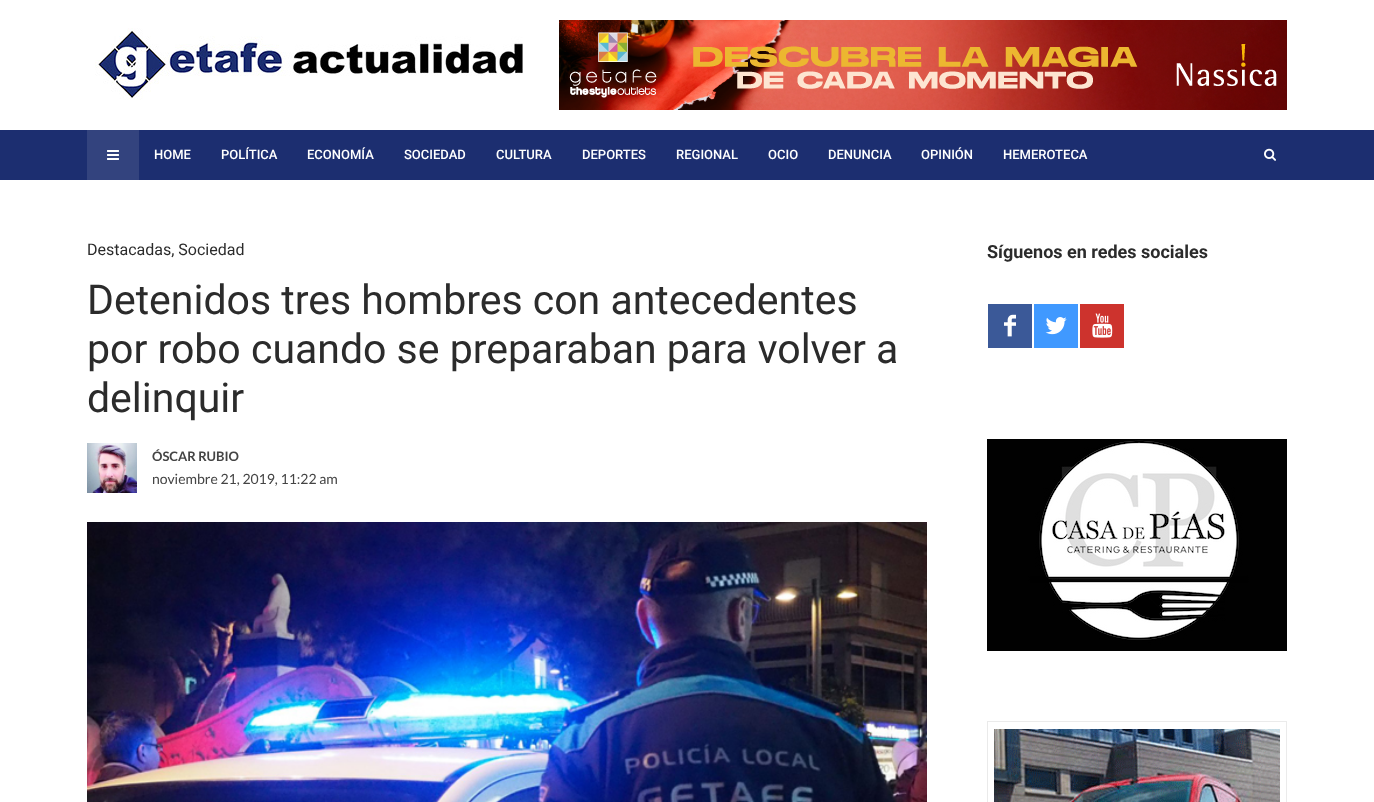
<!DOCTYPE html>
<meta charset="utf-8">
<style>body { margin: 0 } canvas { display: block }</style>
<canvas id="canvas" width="1374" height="802"></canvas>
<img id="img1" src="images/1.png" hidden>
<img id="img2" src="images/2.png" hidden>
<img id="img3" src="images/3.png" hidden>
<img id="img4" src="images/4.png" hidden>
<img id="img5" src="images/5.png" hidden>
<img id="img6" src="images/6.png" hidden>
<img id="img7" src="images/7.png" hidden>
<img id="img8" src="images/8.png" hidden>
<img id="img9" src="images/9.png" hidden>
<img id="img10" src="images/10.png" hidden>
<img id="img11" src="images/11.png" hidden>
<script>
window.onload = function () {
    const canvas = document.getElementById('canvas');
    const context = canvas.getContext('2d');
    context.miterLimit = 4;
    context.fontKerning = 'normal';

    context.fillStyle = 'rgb(255, 255, 255)';
    context.fillRect(0, 0, 1374, 802);
    context.drawImage(document.getElementById('img1'), 95, 28, 428, 72);
    context.drawImage(document.getElementById('img2'), 559, 20, 728, 90);
    context.fillStyle = 'rgb(28, 46, 112)';
    context.fillRect(0, 130, 1374, 50);
    context.fillStyle = 'rgb(51, 67, 126)';
    context.fillRect(87, 130, 52, 50);
    context.drawImage(document.getElementById('img3'), 107, 150, 12, 10);
    context.drawImage(document.getElementById('img4'), 1264, 148, 12, 13);
    context.drawImage(document.getElementById('img5'), 87, 443, 50, 50);
    context.drawImage(document.getElementById('img6'), 87, 522, 840, 280);
    context.fillStyle = 'rgb(59, 89, 152)';
    context.fillRect(988, 304, 44, 44);
    context.drawImage(document.getElementById('img7'), 1004, 314, 12, 23);
    context.fillStyle = 'rgb(64, 153, 255)';
    context.fillRect(1034, 304, 44, 44);
    context.drawImage(document.getElementById('img8'), 1045, 317, 22, 18);
    context.fillStyle = 'rgb(205, 51, 45)';
    context.fillRect(1080, 304, 44, 44);
    context.drawImage(document.getElementById('img9'), 1092, 313, 21, 25);
    context.drawImage(document.getElementById('img10'), 987, 439, 300, 212);
    context.fillStyle = 'rgb(235, 235, 235)';
    context.beginPath();
    context.moveTo(987, 721);
    context.lineTo(1287, 721);
    context.lineTo(1287, 722);
    context.lineTo(988, 722);
    context.closePath();
    context.fill();
    context.fillStyle = 'rgba(51, 51, 51, 0.1)';
    context.beginPath();
    context.moveTo(987, 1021);
    context.lineTo(987, 721);
    context.lineTo(988, 722);
    context.lineTo(988, 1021);
    context.closePath();
    context.fill();
    context.fillStyle = 'rgb(235, 235, 235)';
    context.beginPath();
    context.moveTo(1287, 722);
    context.lineTo(1287, 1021);
    context.lineTo(1286, 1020);
    context.lineTo(1286, 722);
    context.closePath();
    context.fill();
    context.drawImage(document.getElementById('img11'), 994, 729, 286, 73);
    context.font = '500 13px Roboto';
    context.fillStyle = 'rgb(255, 255, 255)';
    context.fillText('HOME', 154, 159);
    context.fillText('POLÍTICA', 221, 159);
    context.fillText('ECONOMÍA', 307, 159);
    context.fillText('SOCIEDAD', 404, 159);
    context.fillText('CULTURA', 496, 159);
    context.fillText('DEPORTES', 582, 159);
    context.fillText('REGIONAL', 676, 159);
    context.fillText('OCIO', 768, 159);
    context.fillText('DENUNCIA', 828, 159);
    context.fillText('OPINIÓN', 921, 159);
    context.fillText('HEMEROTECA', 1003, 159);
    context.font = '16px Roboto';
    context.fillStyle = 'rgb(43, 43, 43)';
    context.fillText('Destacadas, Sociedad', 87, 255);
    context.font = '41px Roboto';
    context.fillText('Detenidos tres hombres con antecedentes', 87, 314);
    context.fillText('por robo cuando se preparaban para volver a', 87, 363);
    context.fillText('delinquir', 87, 412);
    context.font = 'bold 13px Lato';
    context.fillStyle = 'rgb(68, 68, 68)';
    context.fillText('ÓSCAR RUBIO', 152, 461);
    context.font = '14px Lato';
    context.fillText('noviembre 21, 2019, 11:22 am', 152, 484);
    context.font = 'bold 18px Roboto';
    context.fillStyle = 'rgb(43, 43, 43)';
    context.fillText('Síguenos en redes sociales', 987, 258);
};
</script>
